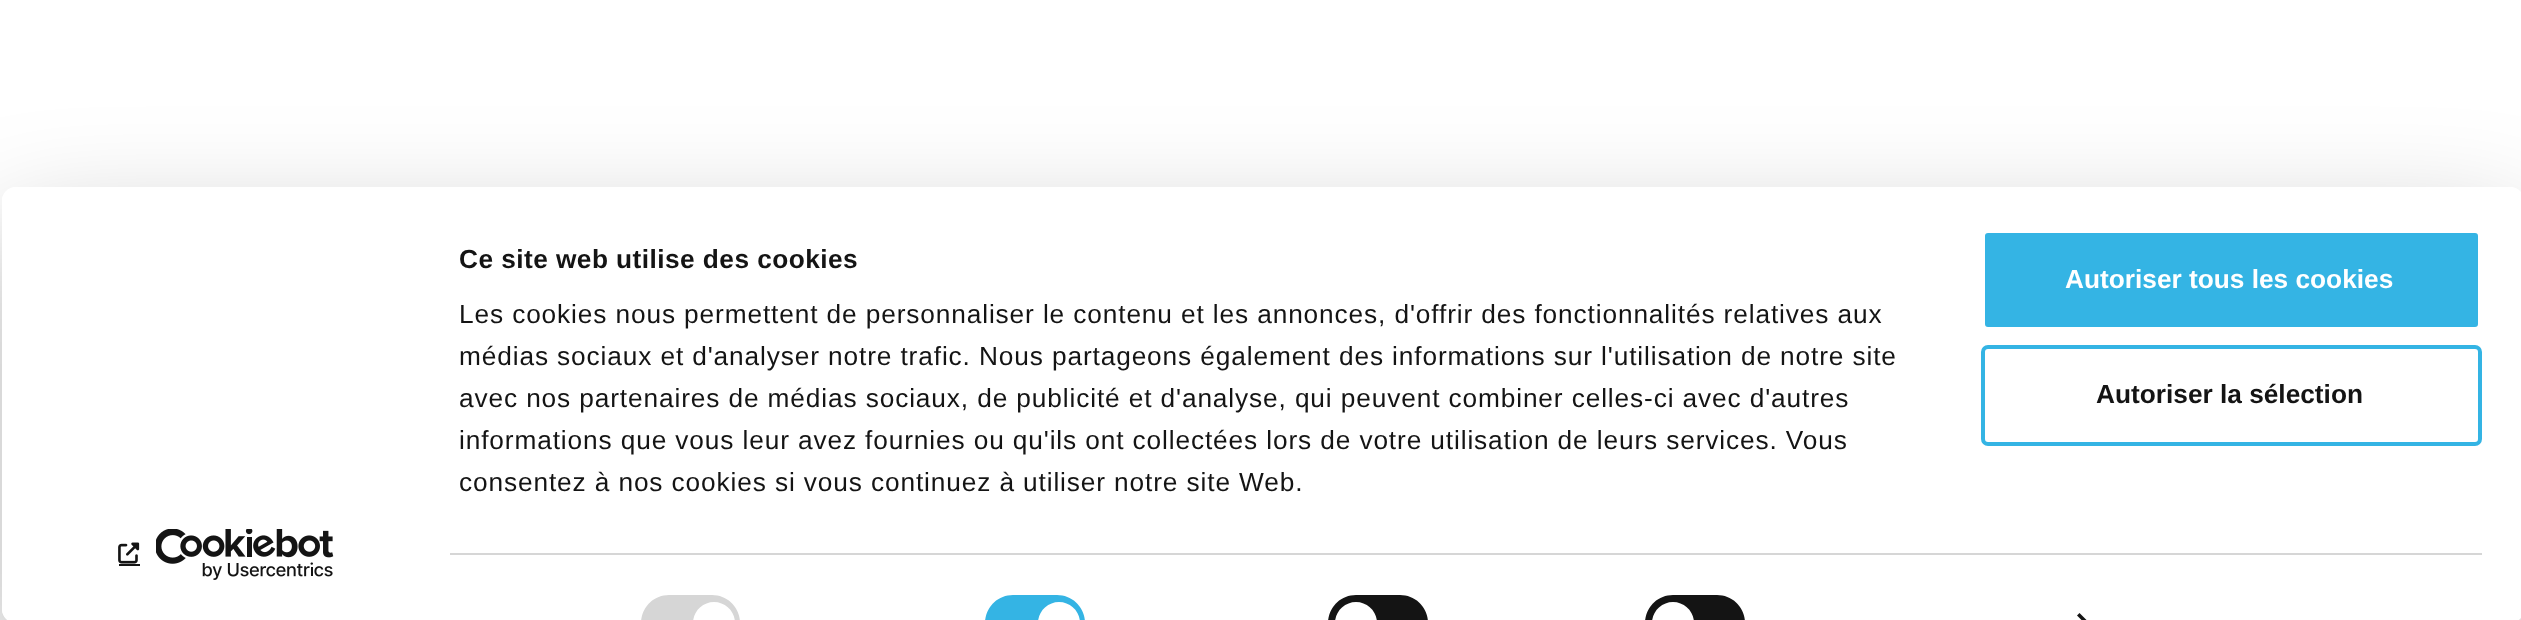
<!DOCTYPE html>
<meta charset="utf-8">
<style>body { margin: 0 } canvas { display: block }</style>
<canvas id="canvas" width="2521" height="620"></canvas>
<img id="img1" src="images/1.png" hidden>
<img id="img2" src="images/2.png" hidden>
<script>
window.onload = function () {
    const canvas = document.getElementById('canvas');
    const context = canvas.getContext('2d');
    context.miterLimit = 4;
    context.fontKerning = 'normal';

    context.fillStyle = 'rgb(255, 255, 255)';
    context.fillRect(0, 0, 2521, 620);
    context.save();
    context.beginPath();
    context.moveTo(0, 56);
    context.lineTo(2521, 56);
    context.lineTo(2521, 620);
    context.lineTo(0, 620);
    context.closePath();
    context.moveTo(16, 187);
    context.lineTo(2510, 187);
    context.bezierCurveTo(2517.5, 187, 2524, 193.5, 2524, 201);
    context.lineTo(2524, 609);
    context.bezierCurveTo(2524, 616.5, 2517.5, 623, 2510, 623);
    context.lineTo(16, 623);
    context.bezierCurveTo(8.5, 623, 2, 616.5, 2, 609);
    context.lineTo(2, 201);
    context.bezierCurveTo(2, 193.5, 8.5, 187, 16, 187);
    context.closePath();
    context.clip('evenodd');
    context.fillStyle = 'rgba(0, 0, 0, 0.3)';
    context.filter = 'blur(61px)';
    context.beginPath();
    context.roundRect(2, 240, 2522, 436, 14);
    context.fill();
    context.filter = 'none';
    context.restore();
    context.beginPath();
    context.roundRect(2, 187, 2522, 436, 14);
    context.fill();
    context.fillStyle = 'rgb(214, 214, 214)';
    context.fillRect(450, 553, 2032, 2);
    context.beginPath();
    context.moveTo(669, 595);
    context.lineTo(712, 595);
    context.bezierCurveTo(727.5, 595, 740, 607.5, 740, 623);
    context.lineTo(641, 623);
    context.bezierCurveTo(641, 607.5, 653.5, 595, 669, 595);
    context.closePath();
    context.fill();
    context.fillStyle = 'rgb(255, 255, 255)';
    context.beginPath();
    context.moveTo(714, 602);
    context.bezierCurveTo(725.5, 602, 735, 611.5, 735, 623);
    context.lineTo(693, 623);
    context.bezierCurveTo(693, 611.5, 702.5, 602, 714, 602);
    context.closePath();
    context.fill();
    context.fillStyle = 'rgb(52, 180, 228)';
    context.beginPath();
    context.moveTo(1013, 595);
    context.lineTo(1057, 595);
    context.bezierCurveTo(1072.5, 595, 1085, 607.5, 1085, 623);
    context.lineTo(985, 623);
    context.bezierCurveTo(985, 607.5, 997.5, 595, 1013, 595);
    context.closePath();
    context.fill();
    context.fillStyle = 'rgb(255, 255, 255)';
    context.beginPath();
    context.moveTo(1059, 602);
    context.bezierCurveTo(1070.5, 602, 1080, 611.5, 1080, 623);
    context.lineTo(1038, 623);
    context.bezierCurveTo(1038, 611.5, 1047.5, 602, 1059, 602);
    context.closePath();
    context.fill();
    context.fillStyle = 'rgb(20, 20, 20)';
    context.beginPath();
    context.moveTo(1356, 595);
    context.lineTo(1400, 595);
    context.bezierCurveTo(1415.5, 595, 1428, 607.5, 1428, 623);
    context.lineTo(1328, 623);
    context.bezierCurveTo(1328, 607.5, 1340.5, 595, 1356, 595);
    context.closePath();
    context.fill();
    context.fillStyle = 'rgb(255, 255, 255)';
    context.beginPath();
    context.moveTo(1356, 602);
    context.bezierCurveTo(1367.5, 602, 1377, 611.5, 1377, 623);
    context.lineTo(1335, 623);
    context.bezierCurveTo(1335, 611.5, 1344.5, 602, 1356, 602);
    context.closePath();
    context.fill();
    context.fillStyle = 'rgb(20, 20, 20)';
    context.beginPath();
    context.moveTo(1673, 595);
    context.lineTo(1717, 595);
    context.bezierCurveTo(1732.5, 595, 1745, 607.5, 1745, 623);
    context.lineTo(1645, 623);
    context.bezierCurveTo(1645, 607.5, 1657.5, 595, 1673, 595);
    context.closePath();
    context.fill();
    context.fillStyle = 'rgb(255, 255, 255)';
    context.beginPath();
    context.moveTo(1673, 602);
    context.bezierCurveTo(1684.5, 602, 1694, 611.5, 1694, 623);
    context.lineTo(1652, 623);
    context.bezierCurveTo(1652, 611.5, 1661.5, 602, 1673, 602);
    context.closePath();
    context.fill();
    context.fillStyle = 'rgb(20, 20, 20)';
    context.beginPath();
    context.moveTo(2079.5, 613);
    context.lineTo(2089.5, 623);
    context.lineTo(2084.5, 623);
    context.lineTo(2077, 615.5);
    context.closePath();
    context.fill();
    context.fillStyle = 'rgb(52, 180, 228)';
    context.beginPath();
    context.roundRect(1983, 231, 497, 98, 5);
    context.fill();
    context.strokeStyle = 'rgb(255, 255, 255)';
    context.lineWidth = 4;
    context.stroke();
    context.beginPath();
    context.roundRect(1983, 347, 497, 97, 5);
    context.strokeStyle = 'rgb(52, 180, 228)';
    context.stroke();
    context.fillStyle = 'rgb(20, 20, 20)';
    context.fillRect(119, 564, 21, 2);
    context.drawImage(document.getElementById('img1'), 118, 542, 22, 22);
    context.drawImage(document.getElementById('img2'), 156, 529, 178, 51);
    context.save();
    context.beginPath();
    context.rect(460, 240, 1470, 264);
    context.clip();
    context.letterSpacing = '0.45px';
    context.font = 'bold 26.25px Liberation Sans';
    context.fillText('Ce site web utilise des cookies', 459, 268);
    context.restore();
    context.letterSpacing = '0.88px';
    context.font = '26.25px Liberation Sans';
    context.fillText('Les cookies nous permettent de personnaliser le contenu et les annonces, d\'offrir des fonctionnalités relatives aux', 459, 323);
    context.fillText('médias sociaux et d\'analyser notre trafic. Nous partageons également des informations sur l\'utilisation de notre site', 459, 365);
    context.fillText('avec nos partenaires de médias sociaux, de publicité et d\'analyse, qui peuvent combiner celles-ci avec d\'autres', 459, 407);
    context.fillText('informations que vous leur avez fournies ou qu\'ils ont collectées lors de votre utilisation de leurs services. Vous', 459, 449);
    context.save();
    context.beginPath();
    context.rect(460, 240, 1470, 264);
    context.clip();
    context.fillText('consentez à nos cookies si vous continuez à utiliser notre site Web.', 459, 491);
    context.restore();
    context.letterSpacing = '0px';
    context.font = 'bold 26.25px Liberation Sans';
    context.fillStyle = 'rgb(255, 255, 255)';
    context.fillText('Autoriser tous les cookies', 2065, 288);
    context.fillStyle = 'rgb(20, 20, 20)';
    context.fillText('Autoriser la sélection', 2096, 403);
};
</script>
